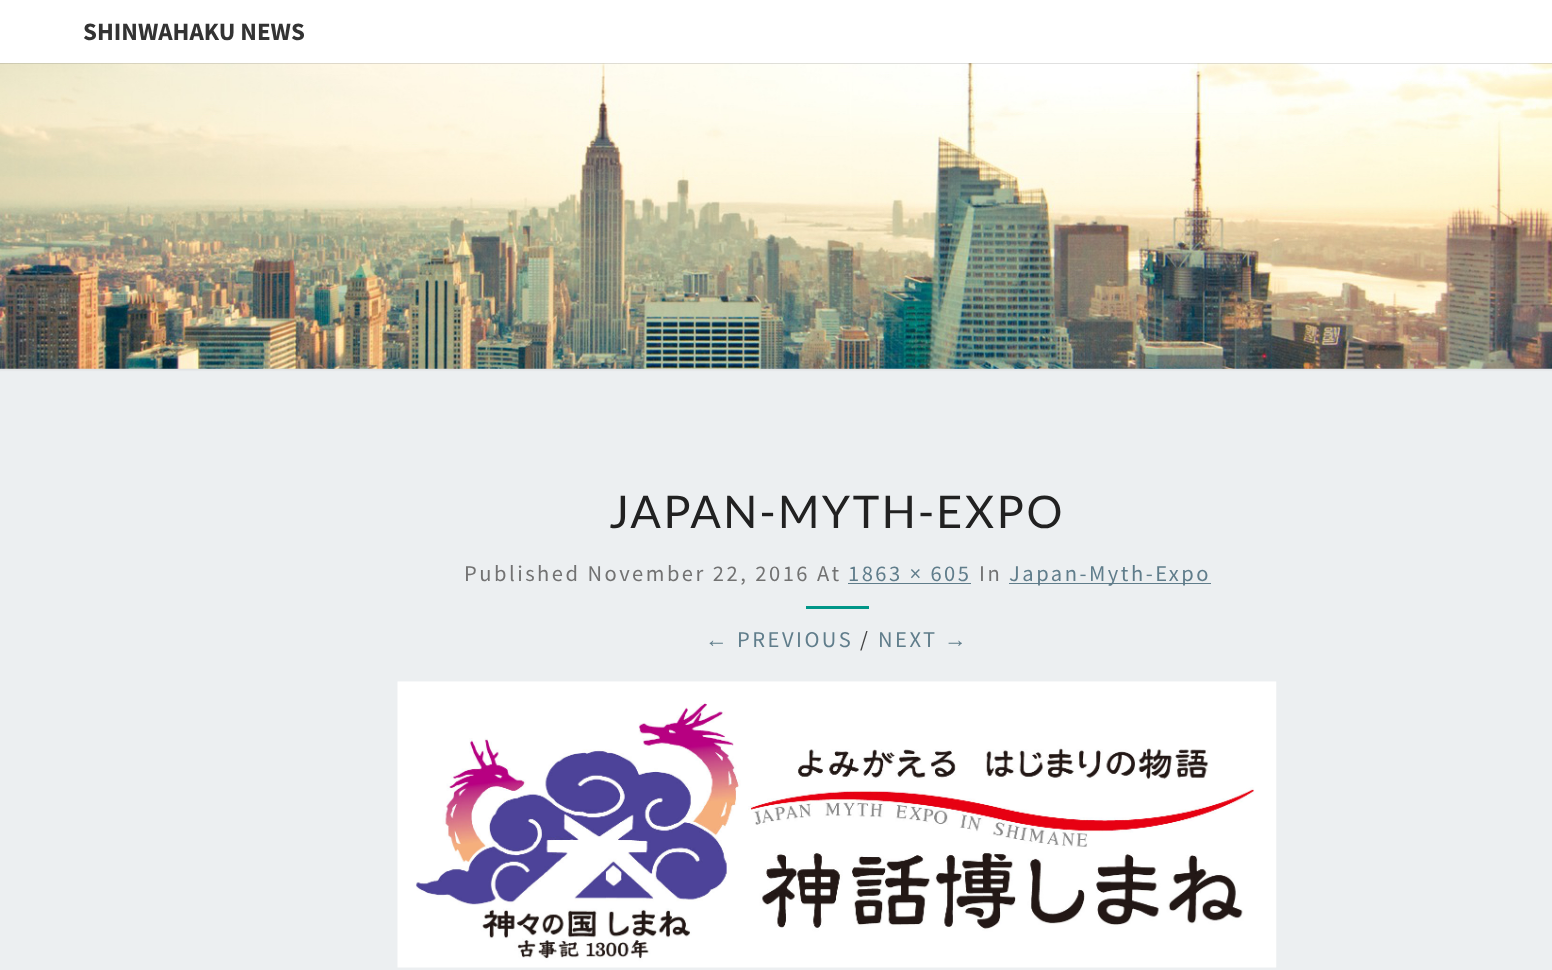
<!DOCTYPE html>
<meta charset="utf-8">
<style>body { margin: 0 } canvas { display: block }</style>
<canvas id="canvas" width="1552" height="970"></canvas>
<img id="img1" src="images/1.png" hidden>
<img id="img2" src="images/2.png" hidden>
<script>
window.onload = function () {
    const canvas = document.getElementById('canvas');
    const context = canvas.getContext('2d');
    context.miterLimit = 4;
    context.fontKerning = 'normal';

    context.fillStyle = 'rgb(236, 239, 241)';
    context.fillRect(0, 0, 1552, 970);
    context.fillStyle = 'rgba(182, 182, 182, 0.3)';
    context.filter = 'blur(1px)';
    context.beginPath();
    context.rect(-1, 61, 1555, 309);
    context.fill();
    context.filter = 'none';
    context.drawImage(document.getElementById('img1'), 0, 63, 1552, 306);
    context.fillStyle = 'rgba(100, 100, 100, 0.2)';
    context.filter = 'blur(0.5px)';
    context.beginPath();
    context.rect(0, 1, 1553, 63);
    context.fill();
    context.filter = 'none';
    context.fillStyle = 'rgb(255, 255, 255)';
    context.fillRect(0, 0, 1552, 63);
    context.fillStyle = 'rgb(96, 125, 139)';
    context.fillRect(848, 583, 123, 1);
    context.fillRect(1009, 583, 202, 1);
    context.fillStyle = 'rgb(0, 150, 136)';
    context.fillRect(806, 606, 63, 3);
    context.drawImage(document.getElementById('img2'), 397, 681, 880, 287);
    context.font = 'bold 25px Source Sans Pro';
    context.fillStyle = 'rgb(51, 51, 51)';
    context.fillText('SHINWAHAKU NEWS', 83, 40);
    context.letterSpacing = '2.5px';
    context.font = '45px Lato';
    context.fillStyle = 'rgb(33, 33, 33)';
    context.fillText('JAPAN-MYTH-EXPO', 609, 528);
    context.font = '22.5px Source Sans Pro';
    context.fillStyle = 'rgb(114, 114, 114)';
    context.fillText('Published November 22, 2016 At', 464, 581);
    context.fillStyle = 'rgb(96, 125, 139)';
    context.fillText('1863 × 605', 848, 581);
    context.fillStyle = 'rgb(114, 114, 114)';
    context.fillText('In', 979, 581);
    context.fillStyle = 'rgb(96, 125, 139)';
    context.fillText('Japan-Myth-Expo', 1009, 581);
    context.font = '22.5px Liberation Sans';
    context.fillText('←', 705, 647);
    context.font = '22.5px Source Sans Pro';
    context.fillText('PREVIOUS', 737, 647);
    context.fillStyle = 'rgb(66, 66, 66)';
    context.fillText('/', 860, 647);
    context.fillStyle = 'rgb(96, 125, 139)';
    context.fillText('NEXT', 878, 647);
    context.font = '22.5px Liberation Sans';
    context.fillText('→', 944, 647);
};
</script>
